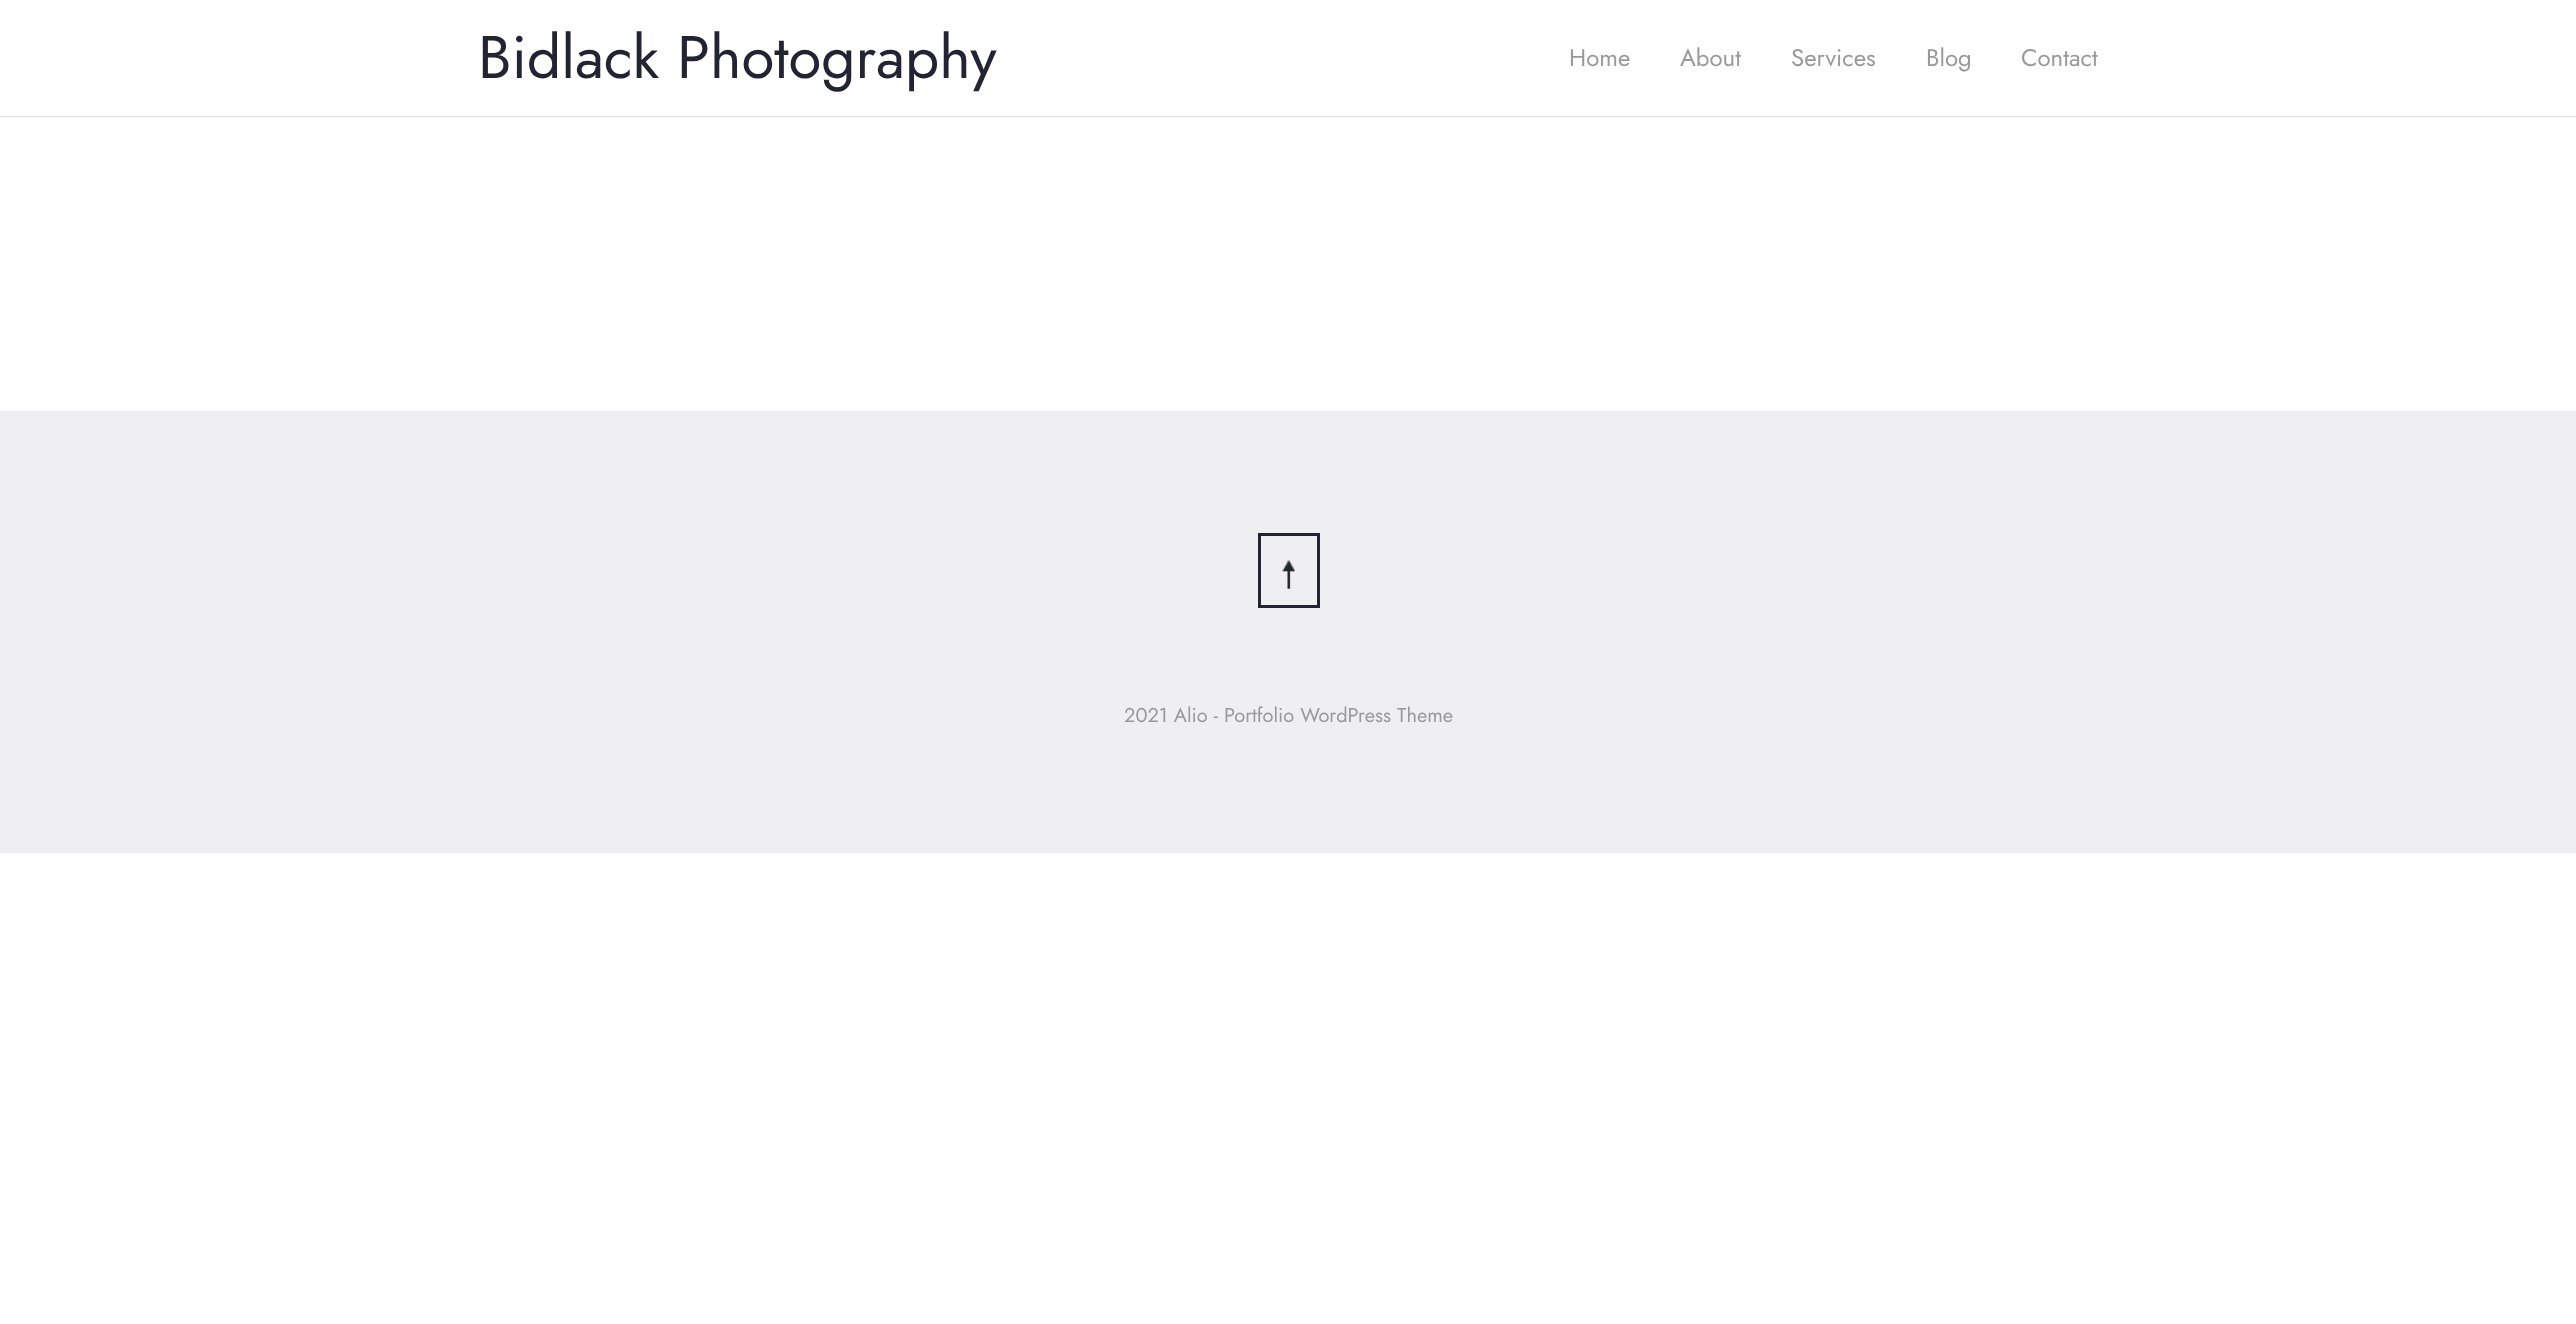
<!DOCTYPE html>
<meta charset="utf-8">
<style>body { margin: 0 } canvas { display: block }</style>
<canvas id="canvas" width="2576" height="1324"></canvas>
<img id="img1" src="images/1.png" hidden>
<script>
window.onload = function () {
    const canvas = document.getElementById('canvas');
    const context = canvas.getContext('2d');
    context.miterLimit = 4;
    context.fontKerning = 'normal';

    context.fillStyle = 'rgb(255, 255, 255)';
    context.fillRect(0, 0, 2576, 1324);
    context.fillStyle = 'rgb(221, 221, 221)';
    context.fillRect(0, 116, 2576, 1);
    context.fillStyle = 'rgb(239, 239, 241)';
    context.fillRect(0, 411, 2576, 442);
    context.strokeStyle = 'rgb(34, 35, 51)';
    context.lineWidth = 3;
    context.strokeRect(1259.5, 534.5, 59, 72);
    context.drawImage(document.getElementById('img1'), 1282, 560, 13, 29);
    context.font = '60px Jost';
    context.fillStyle = 'rgb(34, 35, 51)';
    context.fillText('Bidlack Photography', 478, 78);
    context.font = '24px Jost';
    context.fillStyle = 'rgb(153, 153, 153)';
    context.fillText('Home', 1569, 66);
    context.fillText('About', 1680, 66);
    context.fillText('Services', 1791, 66);
    context.fillText('Blog', 1926, 66);
    context.fillText('Contact', 2021, 66);
    context.font = '20px Jost';
    context.fillText('2021 Alio - Portfolio WordPress Theme', 1124, 722);
};
</script>
